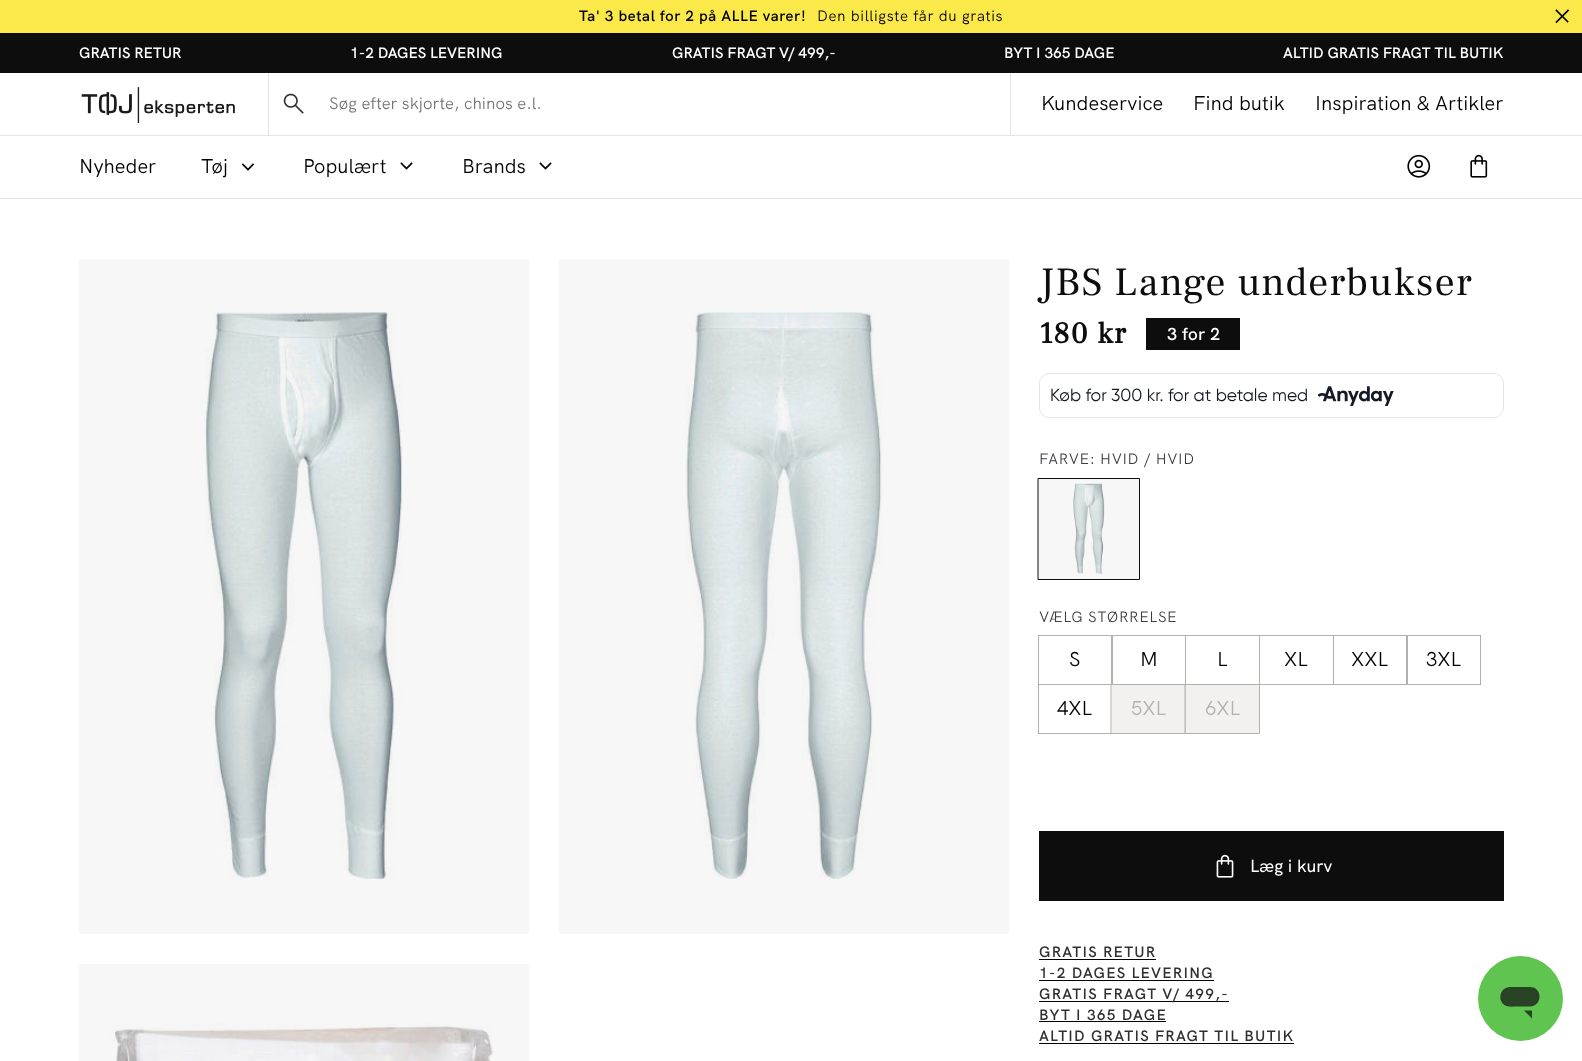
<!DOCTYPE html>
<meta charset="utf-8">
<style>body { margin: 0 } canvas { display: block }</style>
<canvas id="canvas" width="1582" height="1061"></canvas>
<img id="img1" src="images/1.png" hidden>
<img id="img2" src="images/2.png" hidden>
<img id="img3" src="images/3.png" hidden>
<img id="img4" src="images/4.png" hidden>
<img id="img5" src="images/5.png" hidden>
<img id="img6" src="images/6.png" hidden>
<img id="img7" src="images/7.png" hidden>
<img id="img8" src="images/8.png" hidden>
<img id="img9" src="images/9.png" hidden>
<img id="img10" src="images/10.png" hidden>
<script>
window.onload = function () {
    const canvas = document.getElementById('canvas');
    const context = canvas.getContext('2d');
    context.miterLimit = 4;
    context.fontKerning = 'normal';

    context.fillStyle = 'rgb(255, 255, 255)';
    context.fillRect(0, 0, 1582, 1061);
    context.fillStyle = 'rgb(247, 247, 247)';
    context.fillRect(79, 964, 450, 97);
    context.fillRect(559, 259, 450, 675);
    context.fillRect(79, 259, 450, 675);
    context.fillStyle = 'rgb(250, 233, 73)';
    context.fillRect(0, 0, 1582, 33);
    context.beginPath();
    context.moveTo(1556.5, 10.5);
    context.lineTo(1567.5, 21.5);
    context.moveTo(1556.5, 22);
    context.lineTo(1568, 10.5);
    context.strokeStyle = 'rgb(0, 0, 0)';
    context.lineWidth = 1.7;
    context.lineCap = 'square';
    context.stroke();
    context.fillStyle = 'rgb(13, 13, 13)';
    context.fillRect(0, 33, 1582, 40);
    context.fillStyle = 'rgb(229, 228, 226)';
    context.fillRect(0, 198, 1582, 1);
    context.drawImage(document.getElementById('img1'), 81, 87, 154, 36);
    context.fillRect(1010, 73, 1, 62);
    context.fillRect(268, 73, 1, 62);
    context.drawImage(document.getElementById('img2'), 283, 93, 21, 21);
    context.fillRect(0, 135, 1582, 1);
    context.beginPath();
    context.moveTo(243, 164.5);
    context.lineTo(248, 169.5);
    context.lineTo(253, 164.5);
    context.stroke();
    context.beginPath();
    context.moveTo(401.5, 163.5);
    context.lineTo(406.5, 168.5);
    context.lineTo(411.5, 163.5);
    context.stroke();
    context.beginPath();
    context.moveTo(540.5, 163.5);
    context.lineTo(545.5, 168.5);
    context.lineTo(550.5, 163.5);
    context.stroke();
    context.drawImage(document.getElementById('img3'), 1407, 154, 24, 24);
    context.drawImage(document.getElementById('img4'), 1470, 154, 18, 24);
    context.drawImage(document.getElementById('img5'), 205, 312, 197, 567);
    context.drawImage(document.getElementById('img6'), 685, 312, 197, 567);
    context.drawImage(document.getElementById('img7'), 109, 1023, 385, 38);
    context.fillStyle = 'rgb(13, 13, 13)';
    context.fillRect(1146, 318, 94, 32);
    context.beginPath();
    context.roundRect(1039.5, 373.5, 464, 44, 9.5);
    context.strokeStyle = 'rgb(227, 230, 233)';
    context.lineWidth = 1;
    context.stroke();
    context.drawImage(document.getElementById('img8'), 1318, 386, 76, 20);
    context.fillStyle = 'rgb(247, 247, 247)';
    context.beginPath();
    context.rect(1038.5, 478.5, 101, 101);
    context.fill();
    context.strokeStyle = 'rgb(13, 13, 13)';
    context.stroke();
    context.drawImage(document.getElementById('img9'), 1073, 483, 32, 91);
    context.strokeStyle = 'rgb(178, 177, 174)';
    context.strokeRect(1038.5, 635.5, 74, 49);
    context.strokeRect(1111.5, 635.5, 74, 49);
    context.strokeRect(1185.5, 635.5, 74, 49);
    context.strokeRect(1259.5, 635.5, 74, 49);
    context.strokeRect(1333.5, 635.5, 74, 49);
    context.strokeRect(1406.5, 635.5, 74, 49);
    context.strokeRect(1038.5, 684.5, 74, 49);
    context.fillStyle = 'rgb(242, 241, 240)';
    context.beginPath();
    context.rect(1111.5, 684.5, 74, 49);
    context.fill();
    context.stroke();
    context.beginPath();
    context.rect(1185.5, 684.5, 74, 49);
    context.fill();
    context.stroke();
    context.fillStyle = 'rgb(13, 13, 13)';
    context.fillRect(1039, 831, 465, 70);
    context.drawImage(document.getElementById('img10'), 1216, 854, 18, 24);
    context.fillStyle = 'rgb(0, 0, 0)';
    context.fillRect(1039, 959, 117, 1);
    context.fillRect(1039, 980, 175, 1);
    context.fillRect(1039, 1001, 190, 1);
    context.fillRect(1039, 1021, 127, 1);
    context.fillRect(1039, 1043, 255, 1);
    context.fillStyle = 'rgb(95, 197, 80)';
    context.beginPath();
    context.arc(1520.5, 998.5, 42.5, 0, 2 * Math.PI);
    context.fill();
    context.fillStyle = 'rgb(40, 66, 36)';
    context.beginPath();
    context.moveTo(1524, 1010.5);
    context.lineTo(1532, 1018.5);
    context.lineTo(1532, 1010.5);
    context.closePath();
    context.moveTo(1510, 987);
    context.bezierCurveTo(1499.5, 987, 1496.5, 1002, 1506.5, 1006);
    context.bezierCurveTo(1509.5, 1007, 1513.5, 1006.5, 1516.5, 1006.5);
    context.lineTo(1530, 1006.5);
    context.bezierCurveTo(1543, 1006, 1542.5, 987, 1530, 987);
    context.closePath();
    context.fill();
    context.letterSpacing = '0.6px';
    context.font = '600 15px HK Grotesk';
    context.fillStyle = 'rgb(0, 0, 0)';
    context.fillText('Ta\' 3 betal for 2 på ALLE varer!', 579, 21);
    context.font = '15px HK Grotesk';
    context.fillText('Den billigste får du gratis', 817, 21);
    context.letterSpacing = '0px';
    context.font = '600 15px HK Grotesk';
    context.fillStyle = 'rgb(255, 255, 255)';
    context.fillText('GRATIS RETUR', 79, 58);
    context.fillText('1-2 DAGES LEVERING', 350, 58);
    context.fillText('GRATIS FRAGT V/ 499,-', 672, 58);
    context.fillText('BYT I 365 DAGE', 1004, 58);
    context.fillText('ALTID GRATIS FRAGT TIL BUTIK', 1283, 58);
    context.font = '16.7px HK Grotesk';
    context.fillStyle = 'rgb(117, 117, 117)';
    context.fillText('Søg efter skjorte, chinos e.l.', 329, 109);
    context.font = '20px HK Grotesk';
    context.fillStyle = 'rgb(0, 0, 0)';
    context.fillText('Kundeservice', 1041, 110);
    context.fillText('Find butik', 1193, 110);
    context.fillText('Inspiration & Artikler', 1315, 110);
    context.fillText('Nyheder', 79, 173);
    context.fillText('Tøj', 201, 173);
    context.fillText('Populært', 303, 173);
    context.fillText('Brands', 462, 173);
    context.letterSpacing = '1.25px';
    context.font = '40px Frank Ruhl Libre';
    context.fillStyle = 'rgb(13, 13, 13)';
    context.fillText('JBS Lange underbukser', 1039, 295);
    context.font = 'bold 30px Frank Ruhl Libre';
    context.fillText('180 kr', 1039, 343);
    context.letterSpacing = '0.25px';
    context.font = '600 17.5px HK Grotesk';
    context.fillStyle = 'rgb(255, 255, 255)';
    context.fillText('3 for 2', 1167, 340);
    context.letterSpacing = '0px';
    context.font = '17.5px Gilroy';
    context.fillStyle = 'rgb(21, 24, 38)';
    context.fillText('Køb for 300 kr. for at betale med', 1050, 401);
    context.letterSpacing = '0.6px';
    context.font = '15px HK Grotesk';
    context.fillStyle = 'rgb(60, 61, 66)';
    context.fillText('FARVE: HVID / HVID', 1039, 464);
    context.fillText('VÆLG STØRRELSE', 1039, 622);
    context.letterSpacing = '0px';
    context.font = '20px HK Grotesk';
    context.fillStyle = 'rgb(0, 0, 0)';
    context.fillText('S', 1069, 666);
    context.fillText('M', 1140, 666);
    context.fillText('L', 1217, 666);
    context.fillText('XL', 1284, 666);
    context.fillText('XXL', 1351, 666);
    context.fillText('3XL', 1426, 666);
    context.fillText('4XL', 1057, 715);
    context.fillStyle = 'rgb(178, 177, 174)';
    context.fillText('5XL', 1131, 715);
    context.fillText('6XL', 1205, 715);
    context.font = '500 17.5px HK Grotesk';
    context.fillStyle = 'rgb(255, 255, 255)';
    context.fillText('Læg i kurv', 1250, 872);
    context.letterSpacing = '1.25px';
    context.font = '600 15px HK Grotesk';
    context.fillStyle = 'rgb(50, 47, 49)';
    context.fillText('GRATIS RETUR', 1039, 957);
    context.fillText('1-2 DAGES LEVERING', 1039, 978);
    context.fillText('GRATIS FRAGT V/ 499,-', 1039, 999);
    context.fillText('BYT I 365 DAGE', 1039, 1020);
    context.fillText('ALTID GRATIS FRAGT TIL BUTIK', 1039, 1041);
};
</script>
